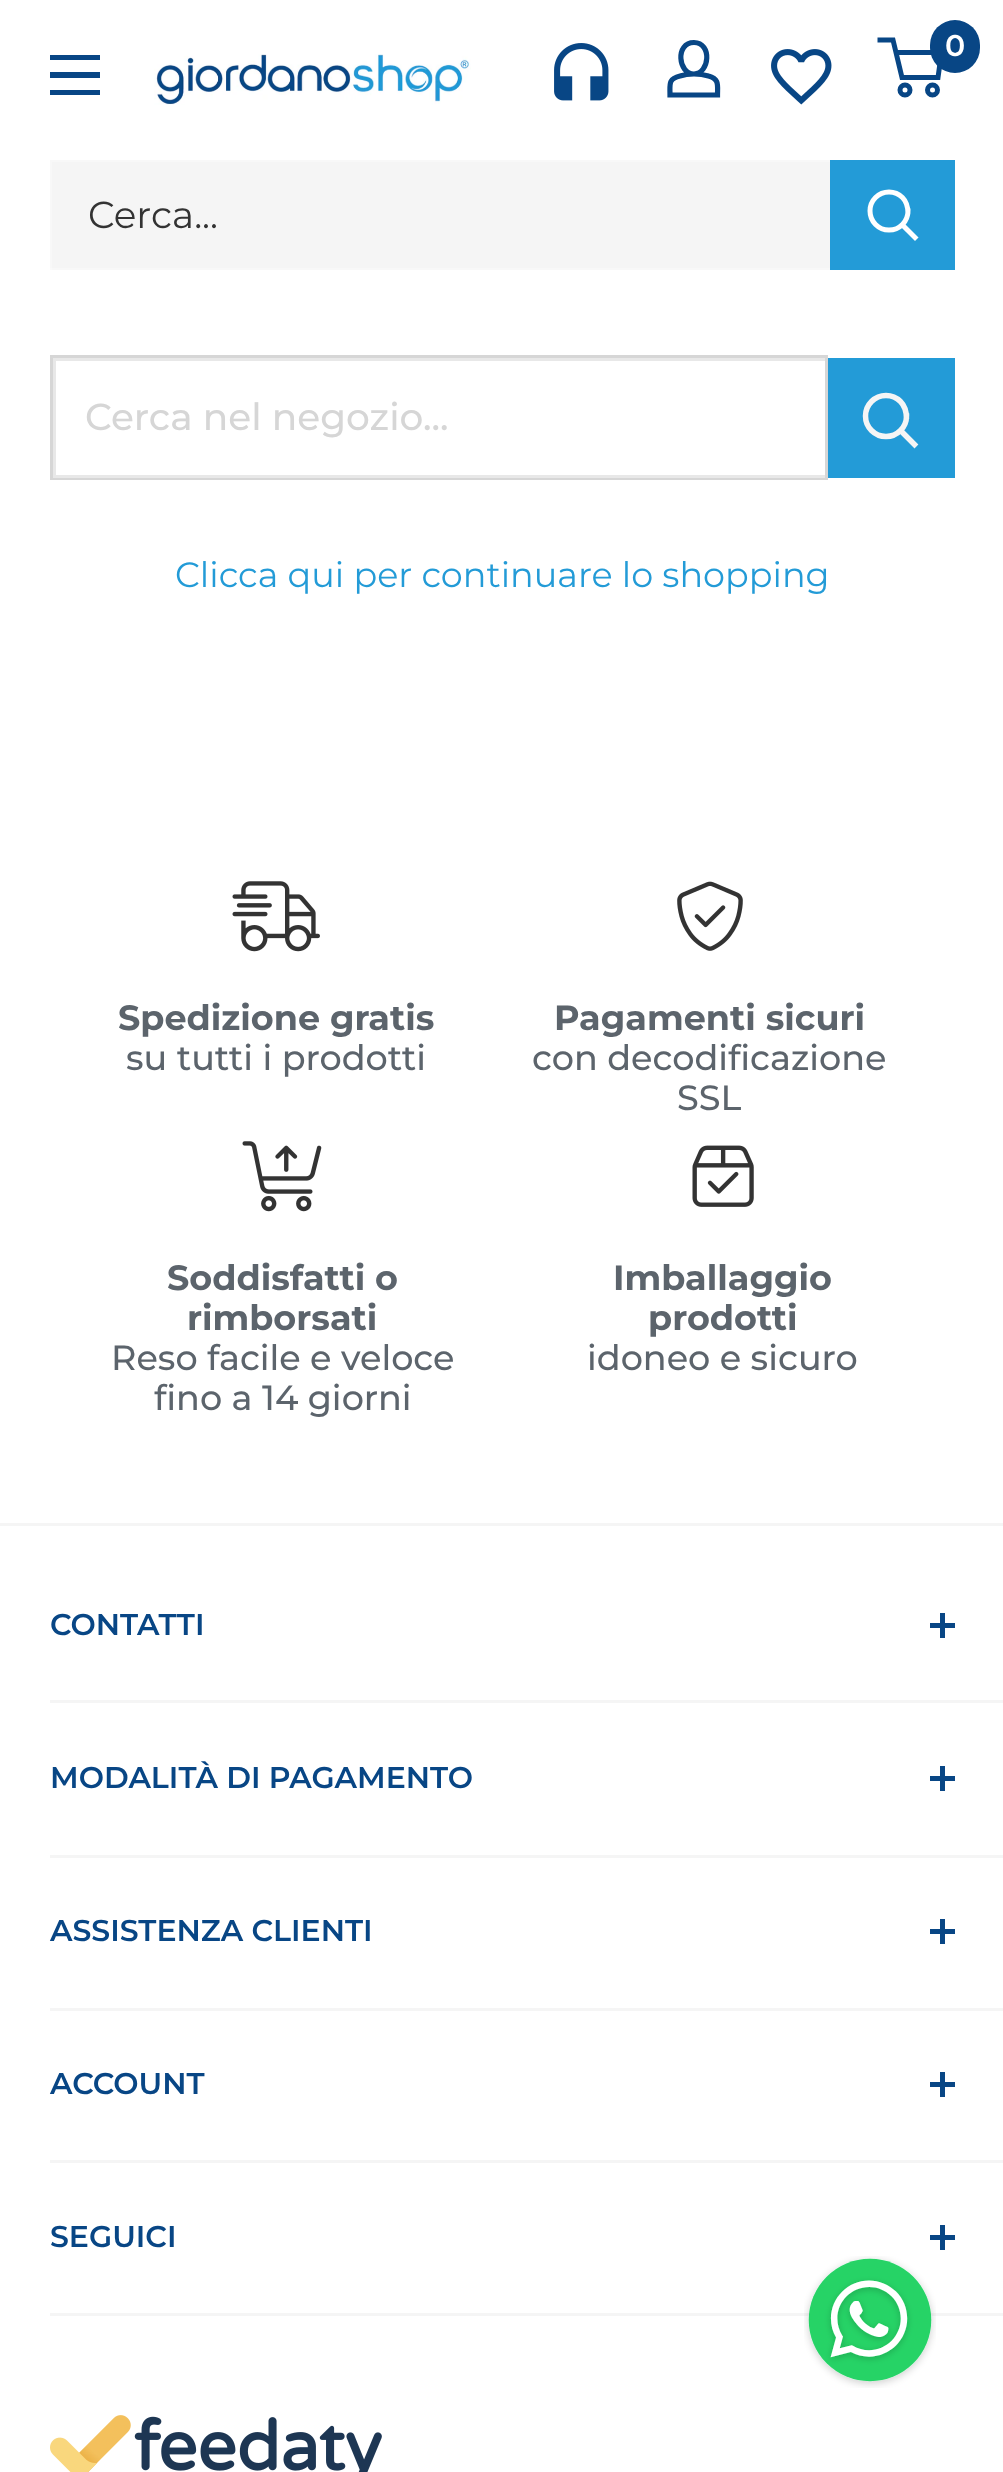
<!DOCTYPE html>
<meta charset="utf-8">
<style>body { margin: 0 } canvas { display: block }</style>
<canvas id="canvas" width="1003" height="2472"></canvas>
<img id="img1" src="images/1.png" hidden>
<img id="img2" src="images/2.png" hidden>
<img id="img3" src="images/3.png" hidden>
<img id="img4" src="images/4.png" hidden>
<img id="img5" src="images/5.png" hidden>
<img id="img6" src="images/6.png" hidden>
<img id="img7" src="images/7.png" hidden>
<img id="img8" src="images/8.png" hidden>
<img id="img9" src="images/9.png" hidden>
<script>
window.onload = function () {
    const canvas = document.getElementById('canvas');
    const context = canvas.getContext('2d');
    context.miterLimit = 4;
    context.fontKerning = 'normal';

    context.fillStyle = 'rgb(255, 255, 255)';
    context.fillRect(0, 0, 1003, 2472);
    context.drawImage(document.getElementById('img1'), 554, 43, 55, 58);
    context.beginPath();
    context.moveTo(694, 74);
    context.bezierCurveTo(698.5, 74, 703.5, 74.5, 708.5, 76);
    context.bezierCurveTo(719.5, 79, 717.5, 85, 717.5, 95);
    context.lineTo(670, 95);
    context.bezierCurveTo(670, 84, 668, 79, 680, 76);
    context.bezierCurveTo(684.5, 74.5, 689, 74, 694, 74);
    context.closePath();
    context.moveTo(694, 74);
    context.bezierCurveTo(678, 74, 675, 42.5, 694, 42.5);
    context.bezierCurveTo(712.5, 42.5, 709.5, 74, 694, 74);
    context.closePath();
    context.strokeStyle = 'rgb(8, 70, 133)';
    context.lineWidth = 5.2;
    context.stroke();
    context.drawImage(document.getElementById('img2'), 771, 49, 61, 56);
    context.beginPath();
    context.arc(905, 90, 5, 0, 2 * Math.PI);
    context.lineWidth = 5;
    context.stroke();
    context.beginPath();
    context.arc(932.5, 90, 5, 0, 2 * Math.PI);
    context.stroke();
    context.beginPath();
    context.moveTo(896, 52.5);
    context.lineTo(941.5, 52.5);
    context.lineTo(938, 77.5);
    context.lineTo(902, 77.5);
    context.lineTo(893, 40);
    context.lineTo(877.5, 40);
    context.stroke();
    context.fillStyle = 'rgb(8, 70, 133)';
    context.beginPath();
    context.roundRect(930, 20, 50, 53, 25);
    context.fill();
    context.beginPath();
    context.moveTo(50, 90);
    context.lineTo(100, 90);
    context.lineTo(100, 95);
    context.lineTo(50, 95);
    context.closePath();
    context.moveTo(50, 55);
    context.lineTo(100, 55);
    context.lineTo(100, 60);
    context.lineTo(50, 60);
    context.closePath();
    context.moveTo(50, 72);
    context.lineTo(100, 72);
    context.lineTo(100, 78);
    context.lineTo(50, 78);
    context.closePath();
    context.fill('evenodd');
    context.drawImage(document.getElementById('img3'), 154, 54, 317, 51);
    context.fillStyle = 'rgb(245, 245, 245)';
    context.fillRect(50, 160, 780, 108);
    context.save();
    context.beginPath();
    context.rect(50, 160, 905, 110);
    context.clip();
    context.fillStyle = 'rgb(248, 248, 248)';
    context.beginPath();
    context.moveTo(-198, -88);
    context.lineTo(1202, -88);
    context.lineTo(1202, 518);
    context.lineTo(-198, 518);
    context.closePath();
    context.moveTo(48, 158);
    context.lineTo(952, 158);
    context.lineTo(952, 268);
    context.lineTo(48, 268);
    context.closePath();
    context.fill('evenodd');
    context.fillStyle = 'rgba(255, 255, 255, 0.3)';
    context.beginPath();
    context.moveTo(-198, -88);
    context.lineTo(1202, -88);
    context.lineTo(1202, 518);
    context.lineTo(-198, 518);
    context.closePath();
    context.moveTo(52, 162);
    context.lineTo(958, 162);
    context.lineTo(958, 272);
    context.lineTo(52, 272);
    context.closePath();
    context.fill('evenodd');
    context.restore();
    context.fillStyle = 'rgb(35, 155, 215)';
    context.fillRect(830, 160, 125, 110);
    context.beginPath();
    context.moveTo(915, 237.5);
    context.lineTo(902.5, 225);
    context.strokeStyle = 'rgb(255, 255, 255)';
    context.lineCap = 'square';
    context.stroke();
    context.beginPath();
    context.arc(889, 211, 19, 0, 2 * Math.PI);
    context.stroke();
    context.strokeStyle = 'rgb(214, 214, 214)';
    context.lineWidth = 3;
    context.strokeRect(51.5, 356.5, 775, 122);
    context.fillStyle = 'rgb(232, 232, 232)';
    context.fillRect(53, 358, 772, 3);
    context.fillRect(53, 475, 772, 3);
    context.fillRect(53, 358, 3, 120);
    context.fillStyle = 'rgb(35, 155, 215)';
    context.fillRect(828, 358, 127, 120);
    context.beginPath();
    context.moveTo(914.5, 444.5);
    context.lineTo(901, 431);
    context.strokeStyle = 'rgb(245, 245, 245)';
    context.lineWidth = 5.5;
    context.stroke();
    context.beginPath();
    context.arc(886, 416, 20.5, 0, 2 * Math.PI);
    context.stroke();
    context.drawImage(document.getElementById('img4'), 232, 881, 88, 71);
    context.drawImage(document.getElementById('img5'), 677, 881, 66, 70);
    context.drawImage(document.getElementById('img6'), 242, 1141, 80, 71);
    context.drawImage(document.getElementById('img7'), 692, 1145, 62, 62);
    context.fillStyle = 'rgb(245, 245, 245)';
    context.fillRect(0, 1523, 1003, 3);
    context.fillRect(50, 1700, 953, 3);
    context.fillStyle = 'rgb(8, 70, 133)';
    context.fillRect(940, 1613, 5, 25);
    context.fillRect(930, 1623, 25, 5);
    context.fillStyle = 'rgb(245, 245, 245)';
    context.fillRect(50, 1855, 953, 3);
    context.fillStyle = 'rgb(8, 70, 133)';
    context.fillRect(940, 1766, 5, 25);
    context.fillRect(930, 1776, 25, 5);
    context.fillStyle = 'rgb(245, 245, 245)';
    context.fillRect(50, 2008, 953, 3);
    context.fillStyle = 'rgb(8, 70, 133)';
    context.fillRect(940, 1919, 5, 25);
    context.fillRect(930, 1929, 25, 5);
    context.fillStyle = 'rgb(245, 245, 245)';
    context.fillRect(50, 2160, 953, 3);
    context.fillStyle = 'rgb(8, 70, 133)';
    context.fillRect(940, 2072, 5, 25);
    context.fillRect(930, 2082, 25, 5);
    context.fillStyle = 'rgb(245, 245, 245)';
    context.fillRect(50, 2313, 953, 3);
    context.fillStyle = 'rgb(8, 70, 133)';
    context.fillRect(940, 2225, 5, 25);
    context.fillRect(930, 2235, 25, 5);
    context.drawImage(document.getElementById('img8'), 50, 2415, 332, 57);
    context.drawImage(document.getElementById('img9'), 804, 2256, 132, 132);
    context.font = '600 30px Montserrat';
    context.fillStyle = 'rgb(255, 255, 255)';
    context.fillText('0', 945, 56);
    context.font = '37.5px Montserrat';
    context.fillStyle = 'rgb(51, 51, 51)';
    context.fillText('Cerca...', 88, 228);
    context.font = '500 37.5px Montserrat';
    context.fillStyle = 'rgb(214, 214, 214)';
    context.fillText('Cerca nel negozio...', 85, 430);
    context.font = '35px Montserrat';
    context.fillStyle = 'rgb(35, 155, 215)';
    context.fillText('Clicca qui per continuare lo shopping', 175, 587);
    context.font = 'bold 35px Montserrat';
    context.fillStyle = 'rgb(92, 100, 108)';
    context.fillText('Spedizione gratis', 118, 1030);
    context.font = '500 35px Montserrat';
    context.fillText('su tutti i prodotti', 126, 1070);
    context.font = 'bold 35px Montserrat';
    context.fillText('Pagamenti sicuri', 554, 1030);
    context.font = '500 35px Montserrat';
    context.fillText('con decodificazione', 532, 1070);
    context.fillText('SSL', 677, 1110);
    context.font = 'bold 35px Montserrat';
    context.fillText('Soddisfatti o', 167, 1290);
    context.fillText('rimborsati', 187, 1330);
    context.font = '500 35px Montserrat';
    context.fillText('Reso facile e veloce', 111, 1370);
    context.fillText('fino a 14 giorni', 154, 1410);
    context.font = 'bold 35px Montserrat';
    context.fillText('Imballaggio', 613, 1290);
    context.fillText('prodotti', 648, 1330);
    context.font = '500 35px Montserrat';
    context.fillText('idoneo e sicuro', 587, 1370);
    context.font = '600 30px Montserrat';
    context.fillStyle = 'rgb(8, 70, 133)';
    context.fillText('CONTATTI', 50, 1635);
    context.fillText('MODALITÀ DI PAGAMENTO', 50, 1788);
    context.fillText('ASSISTENZA CLIENTI', 50, 1941);
    context.fillText('ACCOUNT', 50, 2094);
    context.fillText('SEGUICI', 50, 2247);
};
</script>
